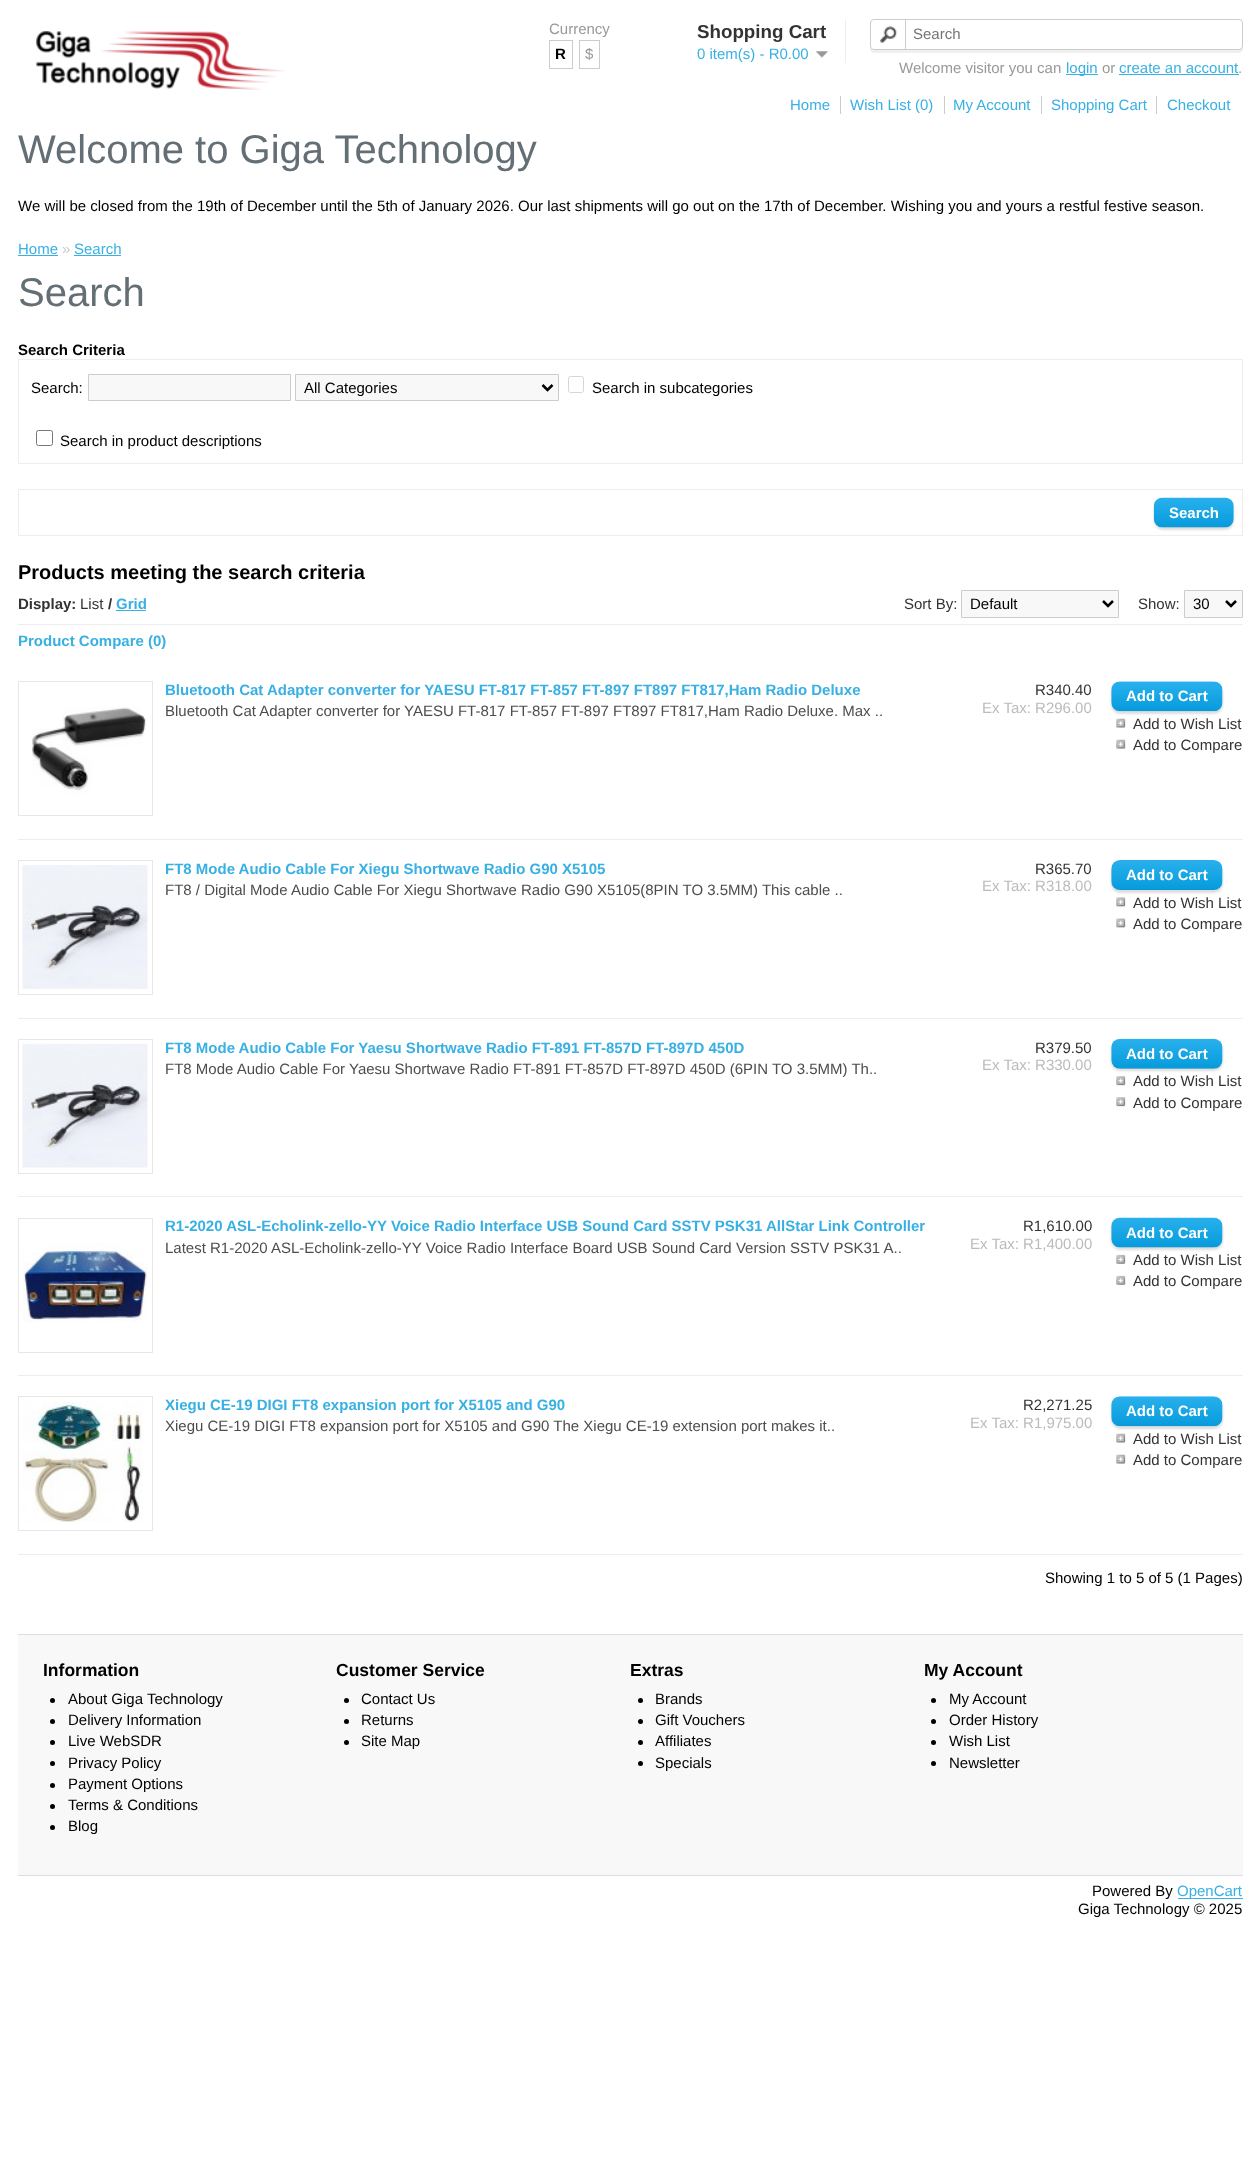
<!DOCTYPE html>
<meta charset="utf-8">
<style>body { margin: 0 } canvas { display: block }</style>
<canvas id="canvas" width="1259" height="2167"></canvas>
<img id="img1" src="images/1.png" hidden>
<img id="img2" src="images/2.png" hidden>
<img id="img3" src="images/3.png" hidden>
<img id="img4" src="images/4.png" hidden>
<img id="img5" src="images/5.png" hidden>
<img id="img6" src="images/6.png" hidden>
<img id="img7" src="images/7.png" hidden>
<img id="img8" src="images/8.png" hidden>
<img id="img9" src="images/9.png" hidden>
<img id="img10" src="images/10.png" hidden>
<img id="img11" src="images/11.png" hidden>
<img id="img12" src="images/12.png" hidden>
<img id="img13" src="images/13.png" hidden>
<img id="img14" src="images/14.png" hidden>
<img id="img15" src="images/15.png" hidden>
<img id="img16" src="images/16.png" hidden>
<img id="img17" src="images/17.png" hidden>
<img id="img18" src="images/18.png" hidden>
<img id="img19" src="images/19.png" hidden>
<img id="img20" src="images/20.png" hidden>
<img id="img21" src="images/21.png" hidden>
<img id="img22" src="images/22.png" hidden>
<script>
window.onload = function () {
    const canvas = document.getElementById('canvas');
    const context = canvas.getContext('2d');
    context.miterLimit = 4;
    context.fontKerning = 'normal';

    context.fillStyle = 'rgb(255, 255, 255)';
    context.fillRect(0, 0, 1259, 2167);
    context.drawImage(document.getElementById('img1'), 36, 31, 249, 59);
    context.strokeStyle = 'rgb(204, 204, 204)';
    context.strokeRect(549.5, 40.5, 23, 28);
    context.strokeRect(579.5, 40.5, 20, 28);
    context.fillStyle = 'rgb(238, 238, 238)';
    context.fillRect(845, 19, 1, 44);
    context.drawImage(document.getElementById('img2'), 816, 51, 12, 7);
    context.fillStyle = 'rgb(240, 240, 240)';
    context.beginPath();
    context.moveTo(870, 46);
    context.lineTo(870, 49);
    context.bezierCurveTo(870, 51, 872, 53, 874, 53);
    context.lineTo(1239, 53);
    context.bezierCurveTo(1241, 53, 1243, 51, 1243, 49);
    context.lineTo(1243, 25);
    context.lineTo(1242, 23);
    context.lineTo(1242, 46);
    context.bezierCurveTo(1242, 48, 1241, 50, 1239, 50);
    context.lineTo(874, 50);
    context.bezierCurveTo(872, 50, 870, 48, 870, 46);
    context.closePath();
    context.fill();
    context.fillStyle = 'rgb(255, 255, 255)';
    context.beginPath();
    context.roundRect(870.5, 19.5, 372, 30, 3.5);
    context.fill();
    context.stroke();
    context.drawImage(document.getElementById('img3'), 880, 26, 17, 17);
    context.fillStyle = 'rgb(204, 204, 204)';
    context.fillRect(905, 19, 1, 30);
    context.fillStyle = 'rgb(56, 176, 227)';
    context.fillRect(1066, 74, 32, 1);
    context.fillRect(1119, 74, 120, 1);
    context.fillStyle = 'rgb(204, 204, 204)';
    context.fillRect(840, 96, 1, 18);
    context.fillRect(944, 96, 1, 18);
    context.fillRect(1041, 96, 1, 18);
    context.fillRect(1156, 96, 1, 18);
    context.fillStyle = 'rgb(56, 176, 227)';
    context.fillRect(18, 255, 40, 1);
    context.fillRect(74, 255, 47, 1);
    context.strokeStyle = 'rgb(238, 238, 238)';
    context.strokeRect(18.5, 359.5, 1224, 104);
    context.fillStyle = 'rgb(248, 248, 248)';
    context.beginPath();
    context.rect(88.5, 374.5, 202, 26);
    context.fill();
    context.strokeStyle = 'rgb(204, 204, 204)';
    context.stroke();
    context.beginPath();
    context.rect(295.5, 374.5, 263, 26);
    context.fill();
    context.stroke();
    context.beginPath();
    context.moveTo(542.5, 385);
    context.lineTo(547.5, 390);
    context.lineTo(552.5, 385);
    context.strokeStyle = 'rgb(0, 0, 0)';
    context.lineWidth = 2.5;
    context.stroke();
    context.beginPath();
    context.roundRect(568.5, 376.5, 15, 16, 2);
    context.strokeStyle = 'rgb(214, 214, 214)';
    context.lineWidth = 1;
    context.stroke();
    context.beginPath();
    context.roundRect(36.5, 430.5, 16, 15, 2);
    context.strokeStyle = 'rgb(118, 118, 118)';
    context.stroke();
    context.strokeStyle = 'rgb(238, 238, 238)';
    context.strokeRect(18.5, 489.5, 1224, 46);
    context.fillStyle = 'rgb(221, 221, 221)';
    context.filter = 'blur(1px)';
    context.beginPath();
    context.roundRect(1154, 500, 80, 30, 9);
    context.fill();
    context.filter = 'none';
    context.drawImage(document.getElementById('img4'), 1153, 497, 81, 31);
    context.fillStyle = 'rgb(238, 238, 238)';
    context.fillRect(18, 624, 1225, 1);
    context.fillStyle = 'rgb(56, 176, 227)';
    context.fillRect(116, 610, 30, 1);
    context.fillStyle = 'rgb(248, 248, 248)';
    context.beginPath();
    context.rect(961.5, 590.5, 157, 27);
    context.fill();
    context.strokeStyle = 'rgb(204, 204, 204)';
    context.stroke();
    context.beginPath();
    context.moveTo(1103, 601);
    context.lineTo(1108, 606);
    context.lineTo(1113, 601);
    context.strokeStyle = 'rgb(0, 0, 0)';
    context.lineWidth = 2.5;
    context.stroke();
    context.beginPath();
    context.rect(1184.5, 590.5, 58, 27);
    context.fill();
    context.strokeStyle = 'rgb(204, 204, 204)';
    context.lineWidth = 1;
    context.stroke();
    context.beginPath();
    context.moveTo(1226, 601);
    context.lineTo(1231, 606);
    context.lineTo(1236, 601);
    context.strokeStyle = 'rgb(0, 0, 0)';
    context.lineWidth = 2.5;
    context.stroke();
    context.strokeStyle = 'rgb(231, 231, 231)';
    context.lineWidth = 1;
    context.strokeRect(18.5, 681.5, 134, 134);
    context.drawImage(document.getElementById('img5'), 31, 707, 115, 88);
    context.fillStyle = 'rgb(221, 221, 221)';
    context.filter = 'blur(1px)';
    context.beginPath();
    context.roundRect(1111, 684, 112, 30, 9);
    context.fill();
    context.filter = 'none';
    context.drawImage(document.getElementById('img6'), 1111, 681, 112, 31);
    context.drawImage(document.getElementById('img7'), 1116, 718, 10, 10);
    context.drawImage(document.getElementById('img8'), 1116, 739, 10, 10);
    context.fillStyle = 'rgb(238, 238, 238)';
    context.fillRect(18, 839, 1225, 1);
    context.strokeRect(18.5, 860.5, 134, 134);
    context.drawImage(document.getElementById('img9'), 22, 865, 126, 124);
    context.fillStyle = 'rgb(221, 221, 221)';
    context.filter = 'blur(1px)';
    context.beginPath();
    context.roundRect(1111, 863, 112, 30, 9);
    context.fill();
    context.filter = 'none';
    context.drawImage(document.getElementById('img10'), 1111, 860, 112, 30);
    context.drawImage(document.getElementById('img11'), 1116, 897, 10, 10);
    context.drawImage(document.getElementById('img12'), 1116, 918, 10, 10);
    context.fillStyle = 'rgb(238, 238, 238)';
    context.fillRect(18, 1018, 1225, 1);
    context.strokeRect(18.5, 1039.5, 134, 134);
    context.drawImage(document.getElementById('img13'), 22, 1043, 126, 125);
    context.fillStyle = 'rgb(221, 221, 221)';
    context.filter = 'blur(1px)';
    context.beginPath();
    context.roundRect(1111, 1041, 112, 30, 9);
    context.fill();
    context.filter = 'none';
    context.drawImage(document.getElementById('img14'), 1111, 1038, 112, 31);
    context.drawImage(document.getElementById('img15'), 1116, 1076, 10, 10);
    context.drawImage(document.getElementById('img16'), 1116, 1097, 10, 10);
    context.fillStyle = 'rgb(238, 238, 238)';
    context.fillRect(18, 1196, 1225, 1);
    context.strokeRect(18.5, 1218.5, 134, 134);
    context.drawImage(document.getElementById('img17'), 22, 1243, 126, 80);
    context.fillStyle = 'rgb(221, 221, 221)';
    context.filter = 'blur(1px)';
    context.beginPath();
    context.roundRect(1111, 1220, 112, 30, 9);
    context.fill();
    context.filter = 'none';
    context.drawImage(document.getElementById('img18'), 1111, 1217, 112, 31);
    context.drawImage(document.getElementById('img19'), 1116, 1254, 10, 10);
    context.drawImage(document.getElementById('img20'), 1116, 1275, 10, 10);
    context.fillStyle = 'rgb(238, 238, 238)';
    context.fillRect(18, 1375, 1225, 1);
    context.strokeRect(18.5, 1396.5, 134, 134);
    context.drawImage(document.getElementById('img21'), 22, 1401, 121, 121);
    context.fillStyle = 'rgb(221, 221, 221)';
    context.filter = 'blur(1px)';
    context.beginPath();
    context.roundRect(1111, 1399, 112, 30, 9);
    context.fill();
    context.filter = 'none';
    context.drawImage(document.getElementById('img22'), 1111, 1396, 112, 31);
    context.drawImage(document.getElementById('img7'), 1116, 1433, 10, 10);
    context.drawImage(document.getElementById('img8'), 1116, 1454, 10, 10);
    context.fillStyle = 'rgb(238, 238, 238)';
    context.fillRect(18, 1554, 1225, 1);
    context.fillStyle = 'rgb(248, 248, 248)';
    context.fillRect(18, 1635, 1225, 240);
    context.fillStyle = 'rgb(219, 222, 225)';
    context.fillRect(18, 1634, 1225, 1);
    context.fillRect(18, 1875, 1225, 1);
    context.fillStyle = 'rgb(0, 0, 0)';
    context.beginPath();
    context.arc(52.5, 1700.5, 2.5, 0, 2 * Math.PI);
    context.fill();
    context.beginPath();
    context.arc(52.5, 1721.5, 2.5, 0, 2 * Math.PI);
    context.fill();
    context.beginPath();
    context.arc(52.5, 1742.5, 2.5, 0, 2 * Math.PI);
    context.fill();
    context.beginPath();
    context.arc(52.5, 1763.5, 2.5, 0, 2 * Math.PI);
    context.fill();
    context.beginPath();
    context.arc(52.5, 1785.5, 2.5, 0, 2 * Math.PI);
    context.fill();
    context.beginPath();
    context.arc(52.5, 1806.5, 2.5, 0, 2 * Math.PI);
    context.fill();
    context.beginPath();
    context.arc(52.5, 1827.5, 2.5, 0, 2 * Math.PI);
    context.fill();
    context.beginPath();
    context.arc(346.5, 1700.5, 2.5, 0, 2 * Math.PI);
    context.fill();
    context.beginPath();
    context.arc(346.5, 1721.5, 2.5, 0, 2 * Math.PI);
    context.fill();
    context.beginPath();
    context.arc(346.5, 1742.5, 2.5, 0, 2 * Math.PI);
    context.fill();
    context.beginPath();
    context.arc(640.5, 1700.5, 2.5, 0, 2 * Math.PI);
    context.fill();
    context.beginPath();
    context.arc(640.5, 1721.5, 2.5, 0, 2 * Math.PI);
    context.fill();
    context.beginPath();
    context.arc(640.5, 1742.5, 2.5, 0, 2 * Math.PI);
    context.fill();
    context.beginPath();
    context.arc(640.5, 1763.5, 2.5, 0, 2 * Math.PI);
    context.fill();
    context.beginPath();
    context.arc(933.5, 1700.5, 2.5, 0, 2 * Math.PI);
    context.fill();
    context.beginPath();
    context.arc(933.5, 1721.5, 2.5, 0, 2 * Math.PI);
    context.fill();
    context.beginPath();
    context.arc(933.5, 1742.5, 2.5, 0, 2 * Math.PI);
    context.fill();
    context.beginPath();
    context.arc(933.5, 1763.5, 2.5, 0, 2 * Math.PI);
    context.fill();
    context.fillStyle = 'rgb(56, 176, 227)';
    context.fillRect(1178, 1898, 65, 1);
    context.font = '15px Liberation Sans';
    context.fillStyle = 'rgb(153, 153, 153)';
    context.fillText('Currency', 549, 34);
    context.font = 'bold 15px Liberation Sans';
    context.fillStyle = 'rgb(0, 0, 0)';
    context.fillText('R', 555, 59);
    context.font = '15px Liberation Sans';
    context.fillStyle = 'rgb(153, 153, 153)';
    context.fillText('$', 585, 59);
    context.font = 'bold 18.75px Liberation Sans';
    context.fillStyle = 'rgb(51, 51, 51)';
    context.fillText('Shopping Cart', 697, 38);
    context.font = '15px Liberation Sans';
    context.fillStyle = 'rgb(56, 176, 227)';
    context.fillText('0 item(s) - R0.00', 697, 59);
    context.fillStyle = 'rgb(117, 117, 117)';
    context.fillText('Search', 913, 39);
    context.fillStyle = 'rgb(153, 153, 153)';
    context.fillText('Welcome visitor you can', 899, 73);
    context.fillStyle = 'rgb(56, 176, 227)';
    context.fillText('login', 1066, 73);
    context.fillStyle = 'rgb(153, 153, 153)';
    context.fillText('or', 1102, 73);
    context.fillStyle = 'rgb(56, 176, 227)';
    context.fillText('create an account', 1119, 73);
    context.fillStyle = 'rgb(153, 153, 153)';
    context.fillText('.', 1238, 73);
    context.fillStyle = 'rgb(56, 176, 227)';
    context.fillText('Home', 790, 110);
    context.fillText('Wish List (0)', 850, 110);
    context.fillText('My Account', 953, 110);
    context.fillText('Shopping Cart', 1051, 110);
    context.fillText('Checkout', 1167, 110);
    context.font = '40px Liberation Sans';
    context.fillStyle = 'rgb(99, 110, 117)';
    context.fillText('Welcome to Giga Technology', 18, 163);
    context.font = '15px Liberation Sans';
    context.fillStyle = 'rgb(0, 0, 0)';
    context.fillText('We will be closed from the 19th of December until the 5th of January 2026. Our last shipments will go out on the 17th of December. Wishing you and yours a restful festive season.', 18, 211);
    context.fillStyle = 'rgb(56, 176, 227)';
    context.fillText('Home', 18, 254);
    context.fillStyle = 'rgb(204, 204, 204)';
    context.fillText('»', 62, 254);
    context.fillStyle = 'rgb(56, 176, 227)';
    context.fillText('Search', 74, 254);
    context.font = '40px Liberation Sans';
    context.fillStyle = 'rgb(99, 110, 117)';
    context.fillText('Search', 18, 306);
    context.font = 'bold 15px Liberation Sans';
    context.fillStyle = 'rgb(0, 0, 0)';
    context.fillText('Search Criteria', 18, 355);
    context.font = '15px Liberation Sans';
    context.fillText('Search:', 31, 393);
    context.fillText('All Categories', 304, 393);
    context.fillText('Search in subcategories', 592, 393);
    context.fillText('Search in product descriptions', 60, 446);
    context.font = 'bold 15px Liberation Sans';
    context.fillStyle = 'rgb(255, 255, 255)';
    context.fillText('Search', 1169, 518);
    context.font = 'bold 20px Liberation Sans';
    context.fillStyle = 'rgb(0, 0, 0)';
    context.fillText('Products meeting the search criteria', 18, 579);
    context.font = 'bold 15px Liberation Sans';
    context.fillStyle = 'rgb(51, 51, 51)';
    context.fillText('Display:', 18, 609);
    context.font = '15px Liberation Sans';
    context.fillText('List', 80, 609);
    context.font = 'bold 15px Liberation Sans';
    context.fillText('/', 108, 609);
    context.fillStyle = 'rgb(56, 176, 227)';
    context.fillText('Grid', 116, 609);
    context.font = '15px Liberation Sans';
    context.fillStyle = 'rgb(51, 51, 51)';
    context.fillText('Sort By:', 904, 609);
    context.fillStyle = 'rgb(0, 0, 0)';
    context.fillText('Default', 970, 609);
    context.fillStyle = 'rgb(51, 51, 51)';
    context.fillText('Show:', 1138, 609);
    context.fillStyle = 'rgb(0, 0, 0)';
    context.fillText('30', 1193, 609);
    context.font = 'bold 15px Liberation Sans';
    context.fillStyle = 'rgb(56, 176, 227)';
    context.fillText('Product Compare (0)', 18, 646);
    context.fillText('Bluetooth Cat Adapter converter for YAESU FT-817 FT-857 FT-897 FT897 FT817,Ham Radio Deluxe', 165, 695);
    context.font = '15px Liberation Sans';
    context.fillStyle = 'rgb(51, 51, 51)';
    context.fillText('R340.40', 1035, 695);
    context.fillStyle = 'rgb(187, 187, 187)';
    context.fillText('Ex Tax: R296.00', 982, 713);
    context.fillStyle = 'rgb(77, 77, 77)';
    context.fillText('Bluetooth Cat Adapter converter for YAESU FT-817 FT-857 FT-897 FT897 FT817,Ham Radio Deluxe. Max ..', 165, 716);
    context.font = 'bold 15px Liberation Sans';
    context.fillStyle = 'rgb(255, 255, 255)';
    context.fillText('Add to Cart', 1126, 701);
    context.font = '15px Liberation Sans';
    context.fillStyle = 'rgb(51, 51, 51)';
    context.fillText('Add to Wish List', 1133, 729);
    context.fillText('Add to Compare', 1133, 750);
    context.font = 'bold 15px Liberation Sans';
    context.fillStyle = 'rgb(56, 176, 227)';
    context.fillText('FT8 Mode Audio Cable For Xiegu Shortwave Radio G90 X5105', 165, 874);
    context.font = '15px Liberation Sans';
    context.fillStyle = 'rgb(51, 51, 51)';
    context.fillText('R365.70', 1035, 874);
    context.fillStyle = 'rgb(187, 187, 187)';
    context.fillText('Ex Tax: R318.00', 982, 891);
    context.fillStyle = 'rgb(77, 77, 77)';
    context.fillText('FT8 / Digital Mode Audio Cable For Xiegu Shortwave Radio G90 X5105(8PIN TO 3.5MM) This cable ..', 165, 895);
    context.font = 'bold 15px Liberation Sans';
    context.fillStyle = 'rgb(255, 255, 255)';
    context.fillText('Add to Cart', 1126, 880);
    context.font = '15px Liberation Sans';
    context.fillStyle = 'rgb(51, 51, 51)';
    context.fillText('Add to Wish List', 1133, 908);
    context.fillText('Add to Compare', 1133, 929);
    context.font = 'bold 15px Liberation Sans';
    context.fillStyle = 'rgb(56, 176, 227)';
    context.fillText('FT8 Mode Audio Cable For Yaesu Shortwave Radio FT-891 FT-857D FT-897D 450D', 165, 1053);
    context.font = '15px Liberation Sans';
    context.fillStyle = 'rgb(51, 51, 51)';
    context.fillText('R379.50', 1035, 1053);
    context.fillStyle = 'rgb(187, 187, 187)';
    context.fillText('Ex Tax: R330.00', 982, 1070);
    context.fillStyle = 'rgb(77, 77, 77)';
    context.fillText('FT8 Mode Audio Cable For Yaesu Shortwave Radio FT-891 FT-857D FT-897D 450D (6PIN TO 3.5MM) Th..', 165, 1074);
    context.font = 'bold 15px Liberation Sans';
    context.fillStyle = 'rgb(255, 255, 255)';
    context.fillText('Add to Cart', 1126, 1059);
    context.font = '15px Liberation Sans';
    context.fillStyle = 'rgb(51, 51, 51)';
    context.fillText('Add to Wish List', 1133, 1086);
    context.fillText('Add to Compare', 1133, 1108);
    context.font = 'bold 15px Liberation Sans';
    context.fillStyle = 'rgb(56, 176, 227)';
    context.fillText('R1-2020 ASL-Echolink-zello-YY Voice Radio Interface USB Sound Card SSTV PSK31 AllStar Link Controller', 165, 1231);
    context.font = '15px Liberation Sans';
    context.fillStyle = 'rgb(51, 51, 51)';
    context.fillText('R1,610.00', 1023, 1231);
    context.fillStyle = 'rgb(187, 187, 187)';
    context.fillText('Ex Tax: R1,400.00', 970, 1249);
    context.fillStyle = 'rgb(77, 77, 77)';
    context.fillText('Latest R1-2020 ASL-Echolink-zello-YY Voice Radio Interface Board USB Sound Card Version SSTV PSK31 A..', 165, 1253);
    context.font = 'bold 15px Liberation Sans';
    context.fillStyle = 'rgb(255, 255, 255)';
    context.fillText('Add to Cart', 1126, 1238);
    context.font = '15px Liberation Sans';
    context.fillStyle = 'rgb(51, 51, 51)';
    context.fillText('Add to Wish List', 1133, 1265);
    context.fillText('Add to Compare', 1133, 1286);
    context.font = 'bold 15px Liberation Sans';
    context.fillStyle = 'rgb(56, 176, 227)';
    context.fillText('Xiegu CE-19 DIGI FT8 expansion port for X5105 and G90', 165, 1410);
    context.font = '15px Liberation Sans';
    context.fillStyle = 'rgb(51, 51, 51)';
    context.fillText('R2,271.25', 1023, 1410);
    context.fillStyle = 'rgb(187, 187, 187)';
    context.fillText('Ex Tax: R1,975.00', 970, 1428);
    context.fillStyle = 'rgb(77, 77, 77)';
    context.fillText('Xiegu CE-19 DIGI FT8 expansion port for X5105 and G90 The Xiegu CE-19 extension port makes it..', 165, 1431);
    context.font = 'bold 15px Liberation Sans';
    context.fillStyle = 'rgb(255, 255, 255)';
    context.fillText('Add to Cart', 1126, 1416);
    context.font = '15px Liberation Sans';
    context.fillStyle = 'rgb(51, 51, 51)';
    context.fillText('Add to Wish List', 1133, 1444);
    context.fillText('Add to Compare', 1133, 1465);
    context.fillStyle = 'rgb(0, 0, 0)';
    context.fillText('Showing 1 to 5 of 5 (1 Pages)', 1045, 1583);
    context.font = 'bold 17.5px Liberation Sans';
    context.fillText('Information', 43, 1676);
    context.font = '15px Liberation Sans';
    context.fillText('About Giga Technology', 68, 1704);
    context.fillText('Delivery Information', 68, 1725);
    context.fillText('Live WebSDR', 68, 1746);
    context.fillText('Privacy Policy', 68, 1768);
    context.fillText('Payment Options', 68, 1789);
    context.fillText('Terms & Conditions', 68, 1810);
    context.fillText('Blog', 68, 1831);
    context.font = 'bold 17.5px Liberation Sans';
    context.fillText('Customer Service', 336, 1676);
    context.font = '15px Liberation Sans';
    context.fillText('Contact Us', 361, 1704);
    context.fillText('Returns', 361, 1725);
    context.fillText('Site Map', 361, 1746);
    context.font = 'bold 17.5px Liberation Sans';
    context.fillText('Extras', 630, 1676);
    context.font = '15px Liberation Sans';
    context.fillText('Brands', 655, 1704);
    context.fillText('Gift Vouchers', 655, 1725);
    context.fillText('Affiliates', 655, 1746);
    context.fillText('Specials', 655, 1768);
    context.font = 'bold 17.5px Liberation Sans';
    context.fillText('My Account', 924, 1676);
    context.font = '15px Liberation Sans';
    context.fillText('My Account', 949, 1704);
    context.fillText('Order History', 949, 1725);
    context.fillText('Wish List', 949, 1746);
    context.fillText('Newsletter', 949, 1768);
    context.fillText('Powered By', 1092, 1896);
    context.fillStyle = 'rgb(56, 176, 227)';
    context.fillText('OpenCart', 1177, 1896);
    context.fillStyle = 'rgb(0, 0, 0)';
    context.fillText('Giga Technology © 2025', 1078, 1914);
};
</script>
